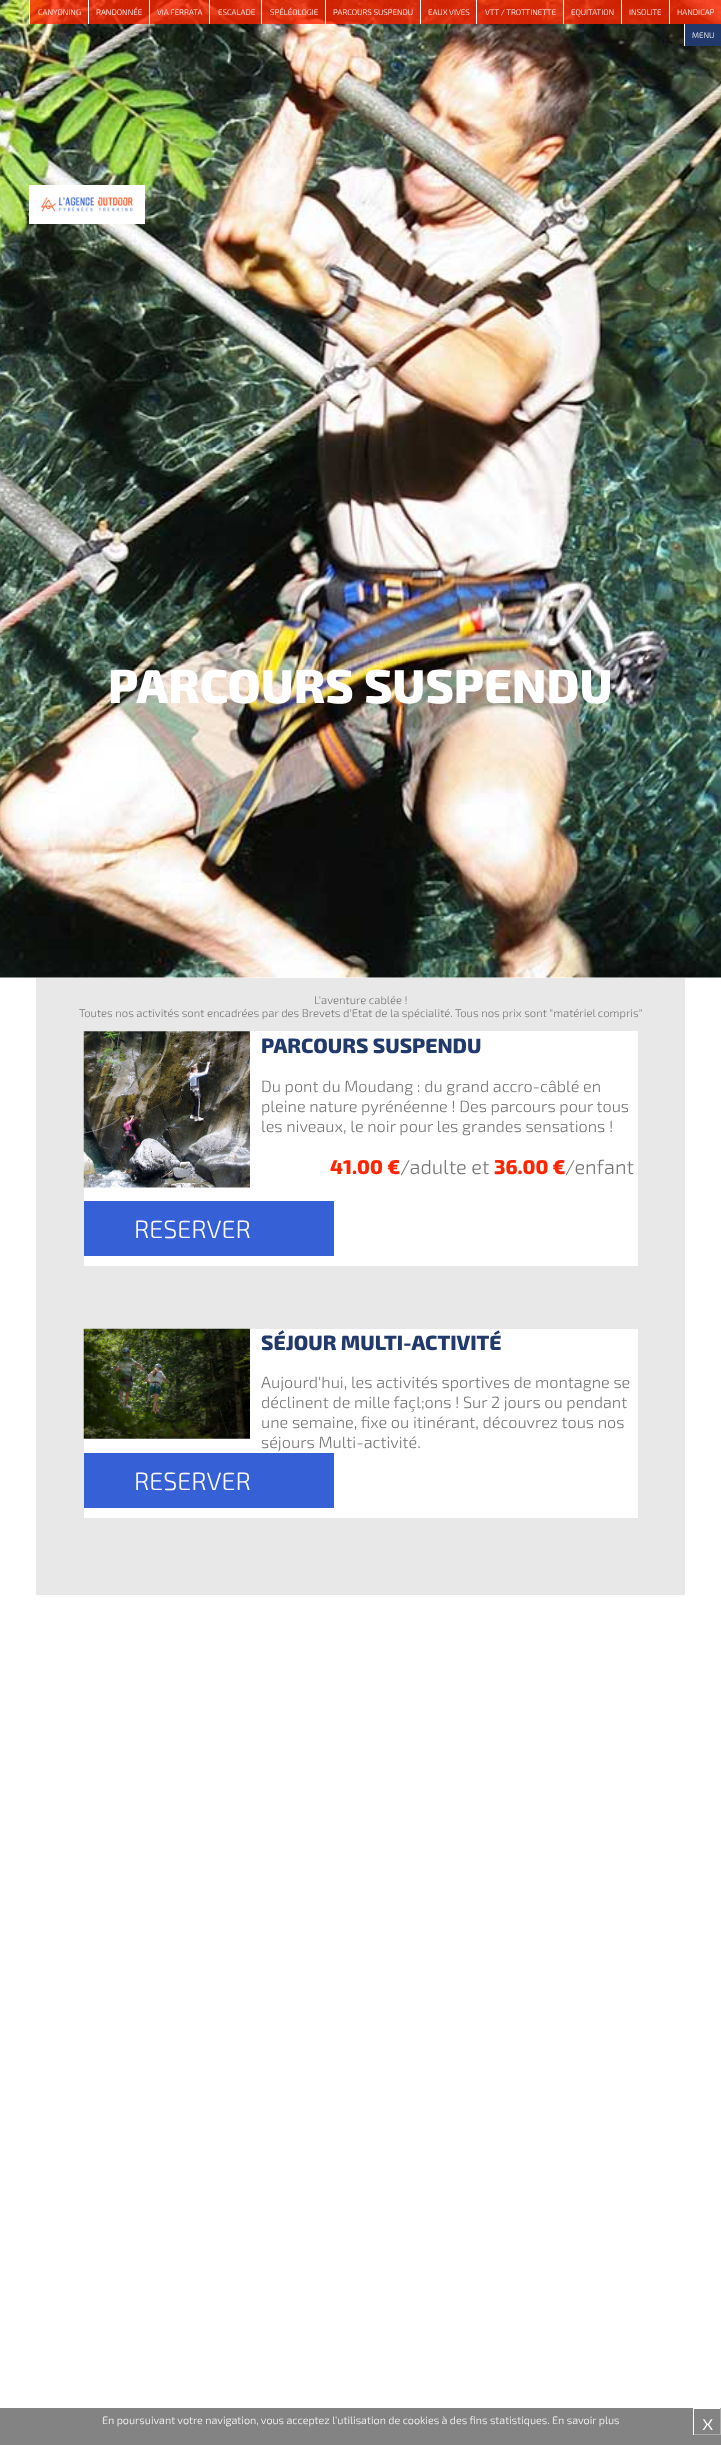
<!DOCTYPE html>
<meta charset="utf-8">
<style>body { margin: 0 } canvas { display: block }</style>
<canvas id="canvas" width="721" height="2445"></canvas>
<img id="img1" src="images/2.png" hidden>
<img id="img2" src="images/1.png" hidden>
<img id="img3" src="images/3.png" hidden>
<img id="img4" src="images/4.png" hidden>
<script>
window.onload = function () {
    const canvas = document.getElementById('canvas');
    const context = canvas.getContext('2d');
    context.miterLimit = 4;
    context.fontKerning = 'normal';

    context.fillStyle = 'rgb(255, 255, 255)';
    context.fillRect(0, 0, 721, 2445);
    context.drawImage(document.getElementById('img1'), 0, 0, 721, 978);
    context.fillStyle = 'rgba(255, 37, 0, 0.8)';
    context.fillRect(30, 0, 58, 24);
    context.fillStyle = 'rgb(255, 255, 255)';
    context.fillRect(29, 0, 1, 24);
    context.fillStyle = 'rgba(255, 37, 0, 0.8)';
    context.fillRect(89, 0, 60, 24);
    context.fillStyle = 'rgb(255, 255, 255)';
    context.fillRect(88, 0, 1, 24);
    context.fillStyle = 'rgba(255, 37, 0, 0.8)';
    context.fillRect(150, 0, 59, 24);
    context.fillStyle = 'rgb(255, 255, 255)';
    context.fillRect(149, 0, 1, 24);
    context.fillStyle = 'rgba(255, 37, 0, 0.8)';
    context.fillRect(210, 0, 51, 24);
    context.fillStyle = 'rgb(255, 255, 255)';
    context.fillRect(209, 0, 1, 24);
    context.fillStyle = 'rgba(255, 37, 0, 0.8)';
    context.fillRect(262, 0, 63, 24);
    context.fillStyle = 'rgb(255, 255, 255)';
    context.fillRect(261, 0, 1, 24);
    context.fillStyle = 'rgba(255, 37, 0, 0.8)';
    context.fillRect(326, 0, 94, 24);
    context.fillStyle = 'rgb(255, 255, 255)';
    context.fillRect(325, 0, 1, 24);
    context.fillStyle = 'rgba(255, 37, 0, 0.8)';
    context.fillRect(421, 0, 55, 24);
    context.fillStyle = 'rgb(255, 255, 255)';
    context.fillRect(420, 0, 1, 24);
    context.fillStyle = 'rgba(255, 37, 0, 0.8)';
    context.fillRect(477, 0, 86, 24);
    context.fillStyle = 'rgb(255, 255, 255)';
    context.fillRect(476, 0, 1, 24);
    context.fillStyle = 'rgba(255, 37, 0, 0.8)';
    context.fillRect(564, 0, 57, 24);
    context.fillStyle = 'rgb(255, 255, 255)';
    context.fillRect(563, 0, 1, 24);
    context.fillStyle = 'rgba(255, 37, 0, 0.8)';
    context.fillRect(622, 0, 47, 24);
    context.fillStyle = 'rgb(255, 255, 255)';
    context.fillRect(621, 0, 1, 24);
    context.fillStyle = 'rgba(255, 37, 0, 0.8)';
    context.fillRect(670, 0, 51, 24);
    context.fillStyle = 'rgb(255, 255, 255)';
    context.fillRect(669, 0, 1, 24);
    context.fillStyle = 'rgb(34, 57, 107)';
    context.fillRect(685, 24, 36, 22);
    context.fillStyle = 'rgb(255, 255, 255)';
    context.fillRect(684, 24, 1, 22);
    context.fillRect(29, 185, 116, 39);
    context.drawImage(document.getElementById('img2'), 41, 197, 92, 15);
    context.fillStyle = 'rgb(232, 232, 232)';
    context.fillRect(36, 978, 649, 617);
    context.fillStyle = 'rgb(255, 255, 255)';
    context.fillRect(84, 1031, 554, 235);
    context.drawImage(document.getElementById('img3'), 83, 1031, 167, 157);
    context.fillStyle = 'rgb(54, 96, 214)';
    context.fillRect(84, 1201, 250, 55);
    context.fillStyle = 'rgb(255, 255, 255)';
    context.fillRect(84, 1329, 554, 189);
    context.drawImage(document.getElementById('img4'), 83, 1328, 167, 111);
    context.fillStyle = 'rgb(54, 96, 214)';
    context.fillRect(84, 1453, 250, 55);
    context.fillStyle = 'rgb(131, 131, 131)';
    context.fillRect(0, 2408, 721, 37);
    context.fillStyle = 'rgb(255, 255, 255)';
    context.fillRect(693, 2408, 28, 1);
    context.fillStyle = 'rgb(170, 170, 170)';
    context.fillRect(720, 2408, 1, 27);
    context.fillRect(693, 2434, 28, 1);
    context.fillStyle = 'rgb(255, 255, 255)';
    context.fillRect(693, 2408, 1, 27);
    context.font = '300 8px "Exo 2"';
    context.fillText('CANYONING', 38, 15);
    context.fillText('RANDONNÉE', 96, 15);
    context.fillText('VIA FERRATA', 157, 15);
    context.fillText('ESCALADE', 218, 15);
    context.fillText('SPÉLÉOLOGIE', 270, 15);
    context.fillText('PARCOURS SUSPENDU', 333, 15);
    context.fillText('EAUX VIVES', 428, 15);
    context.fillText('VTT / TROTTINETTE', 485, 15);
    context.fillText('EQUITATION', 571, 15);
    context.fillText('INSOLITE', 629, 15);
    context.fillText('HANDICAP', 677, 15);
    context.fillText('MENU', 692, 38);
    context.font = '800 47.5px "Exo 2"';
    context.fillText('PARCOURS SUSPENDU', 108, 703);
    context.font = '300 11.25px "Exo 2"';
    context.fillStyle = 'rgb(117, 117, 117)';
    context.fillText('L\'aventure cablée !', 314, 1004);
    context.fillText('Toutes nos activités sont encadrées par des Brevets d\'Etat de la spécialité. Tous nos prix sont "matériel compris"', 79, 1017);
    context.font = '800 20.75px "Exo 2"';
    context.fillStyle = 'rgb(34, 57, 107)';
    context.fillText('PARCOURS SUSPENDU', 261, 1053);
    context.font = '300 16.25px "Exo 2"';
    context.fillStyle = 'rgb(117, 117, 117)';
    context.fillText('Du pont du Moudang : du grand accro-câblé en', 261, 1092);
    context.fillText('pleine nature pyrénéenne ! Des parcours pour tous', 261, 1112);
    context.fillText('les niveaux, le noir pour les grandes sensations !', 261, 1132);
    context.font = '800 20px "Exo 2"';
    context.fillStyle = 'rgb(255, 37, 0)';
    context.fillText('41.00 €', 330, 1174);
    context.font = '300 20px "Exo 2"';
    context.fillStyle = 'rgb(117, 117, 117)';
    context.fillText('/adulte et', 400, 1174);
    context.font = '800 20px "Exo 2"';
    context.fillStyle = 'rgb(255, 37, 0)';
    context.fillText('36.00 €', 494, 1174);
    context.font = '300 20px "Exo 2"';
    context.fillStyle = 'rgb(117, 117, 117)';
    context.fillText('/enfant', 565, 1174);
    context.font = '300 25px "Exo 2"';
    context.fillStyle = 'rgb(255, 255, 255)';
    context.fillText('RESERVER', 134, 1238);
    context.font = '800 20.75px "Exo 2"';
    context.fillStyle = 'rgb(34, 57, 107)';
    context.fillText('SÉJOUR MULTI-ACTIVITÉ', 261, 1350);
    context.font = '300 16.25px "Exo 2"';
    context.fillStyle = 'rgb(117, 117, 117)';
    context.fillText('Aujourd\'hui, les activités sportives de montagne se', 261, 1388);
    context.fillText('déclinent de mille façl;ons ! Sur 2 jours ou pendant', 261, 1408);
    context.fillText('une semaine, fixe ou itinérant, découvrez tous nos', 261, 1428);
    context.fillText('séjours Multi-activité.', 261, 1448);
    context.font = '300 25px "Exo 2"';
    context.fillStyle = 'rgb(255, 255, 255)';
    context.fillText('RESERVER', 134, 1490);
    context.font = '300 10.8px "Exo 2"';
    context.fillText('En poursuivant votre navigation, vous acceptez l\'utilisation de cookies à des fins statistiques. En savoir plus', 102, 2424);
    context.font = '300 22px "Exo 2"';
    context.fillText('x', 702, 2430);
};
</script>
